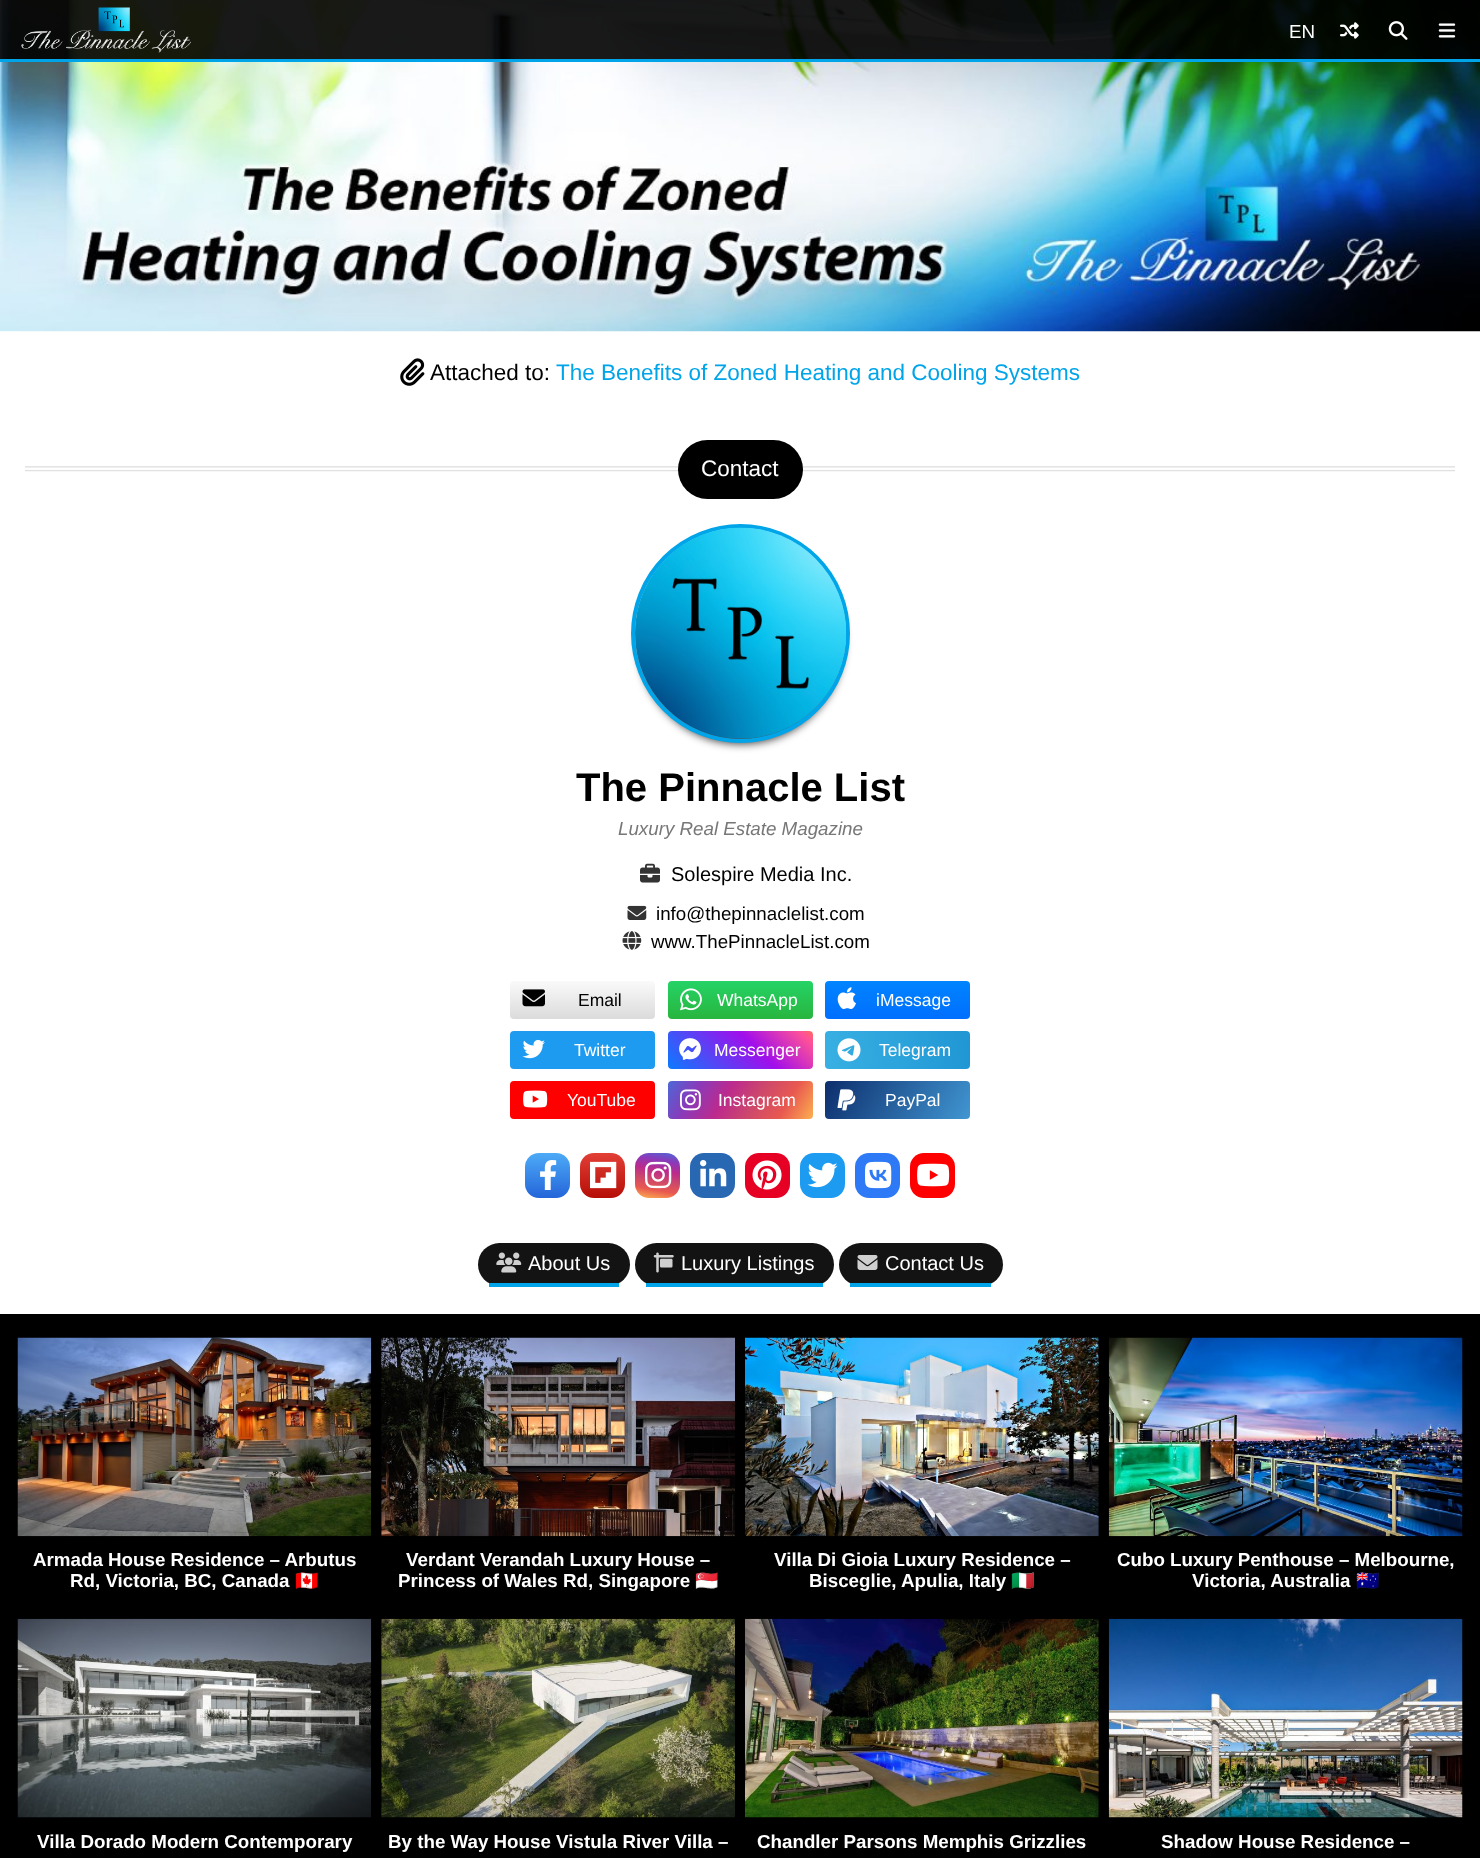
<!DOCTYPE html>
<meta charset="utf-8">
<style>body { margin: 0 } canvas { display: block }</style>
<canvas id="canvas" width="1480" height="1858"></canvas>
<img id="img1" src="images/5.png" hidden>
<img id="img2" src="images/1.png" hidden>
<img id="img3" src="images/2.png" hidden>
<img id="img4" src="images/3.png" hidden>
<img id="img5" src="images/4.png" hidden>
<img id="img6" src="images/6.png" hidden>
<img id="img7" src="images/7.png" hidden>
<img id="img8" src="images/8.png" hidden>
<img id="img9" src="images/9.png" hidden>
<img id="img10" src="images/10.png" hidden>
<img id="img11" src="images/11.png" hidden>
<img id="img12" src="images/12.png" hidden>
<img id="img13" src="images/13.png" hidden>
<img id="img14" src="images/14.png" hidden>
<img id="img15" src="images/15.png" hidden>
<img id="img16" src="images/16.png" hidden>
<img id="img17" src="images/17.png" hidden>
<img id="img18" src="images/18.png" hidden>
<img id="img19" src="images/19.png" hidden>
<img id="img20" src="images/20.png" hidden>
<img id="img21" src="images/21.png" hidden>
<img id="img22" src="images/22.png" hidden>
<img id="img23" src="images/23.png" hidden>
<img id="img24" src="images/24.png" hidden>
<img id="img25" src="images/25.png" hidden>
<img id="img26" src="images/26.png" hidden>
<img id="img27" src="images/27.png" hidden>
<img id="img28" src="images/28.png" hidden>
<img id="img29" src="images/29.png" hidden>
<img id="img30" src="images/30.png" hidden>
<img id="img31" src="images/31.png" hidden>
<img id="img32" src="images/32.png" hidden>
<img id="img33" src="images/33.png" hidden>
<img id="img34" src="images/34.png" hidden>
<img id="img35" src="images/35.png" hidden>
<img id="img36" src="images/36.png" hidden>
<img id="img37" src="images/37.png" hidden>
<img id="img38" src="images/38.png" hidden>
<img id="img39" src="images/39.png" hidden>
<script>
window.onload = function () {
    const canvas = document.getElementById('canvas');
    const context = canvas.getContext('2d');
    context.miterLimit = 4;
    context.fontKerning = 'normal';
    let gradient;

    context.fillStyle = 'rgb(255, 255, 255)';
    context.fillRect(0, 0, 1480, 1858);
    context.drawImage(document.getElementById('img1'), 0, 0, 1480, 332);
    context.fillStyle = 'rgba(0, 0, 0, 0.9)';
    context.fillRect(0, 0, 1480, 59);
    context.fillStyle = 'rgb(0, 164, 232)';
    context.fillRect(0, 59, 1480, 3);
    context.drawImage(document.getElementById('img2'), 21, 7, 170, 46);
    context.drawImage(document.getElementById('img3'), 1340, 22, 19, 17);
    context.drawImage(document.getElementById('img4'), 1388, 21, 20, 19);
    context.drawImage(document.getElementById('img5'), 1438, 23, 18, 15);
    context.drawImage(document.getElementById('img6'), 400, 358, 25, 28);
    context.drawImage(document.getElementById('img7'), 25, 466, 1430, 6);
    context.fillStyle = 'rgb(0, 0, 0)';
    context.beginPath();
    context.roundRect(678, 440, 125, 59, 29.5);
    context.fill();
    context.fillStyle = 'rgba(0, 0, 0, 0.75)';
    context.filter = 'blur(4.5px)';
    context.beginPath();
    context.roundRect(638, 538, 206, 206, 103);
    context.fill();
    context.filter = 'none';
    context.beginPath();
    context.arc(740.5, 633.5, 107.5, 0, 2 * Math.PI);
    context.strokeStyle = 'rgb(0, 164, 232)';
    context.lineWidth = 4;
    context.stroke();
    context.drawImage(document.getElementById('img8'), 635, 527, 212, 212);
    context.drawImage(document.getElementById('img9'), 640, 863, 20, 20);
    context.drawImage(document.getElementById('img10'), 627, 905, 20, 15);
    context.drawImage(document.getElementById('img11'), 622, 931, 20, 19);
    gradient = context.createLinearGradient(583, 981, 583, 1019);
    gradient.addColorStop(0, 'rgb(250, 250, 250)');
    gradient.addColorStop(1, 'rgb(219, 219, 219)');
    context.fillStyle = gradient;
    context.beginPath();
    context.roundRect(510, 981, 145, 38, 4);
    context.fill();
    context.drawImage(document.getElementById('img12'), 522, 989, 23, 18);
    gradient = context.createLinearGradient(740, 981, 740, 1019);
    gradient.addColorStop(0, 'rgb(37, 211, 102)');
    gradient.addColorStop(1, 'rgb(40, 181, 62)');
    context.fillStyle = gradient;
    context.beginPath();
    context.roundRect(668, 981, 145, 38, 4);
    context.fill();
    context.drawImage(document.getElementById('img13'), 680, 988, 22, 23);
    gradient = context.createLinearGradient(898, 981, 898, 1019);
    gradient.addColorStop(0, 'rgb(0, 132, 255)');
    gradient.addColorStop(1, 'rgb(0, 111, 255)');
    context.fillStyle = gradient;
    context.beginPath();
    context.roundRect(825, 981, 145, 38, 4);
    context.fill();
    context.drawImage(document.getElementById('img14'), 837, 987, 19, 22);
    context.fillStyle = 'rgb(29, 155, 240)';
    context.beginPath();
    context.roundRect(510, 1031, 145, 38, 4);
    context.fill();
    context.drawImage(document.getElementById('img15'), 522, 1039, 23, 20);
    gradient = context.createLinearGradient(694, 1096, 786, 1004);
    gradient.addColorStop(0, 'rgb(10, 124, 255)');
    gradient.addColorStop(0.6, 'rgb(161, 14, 235)');
    gradient.addColorStop(0.93, 'rgb(255, 82, 151)');
    gradient.addColorStop(1, 'rgb(255, 108, 92)');
    context.fillStyle = gradient;
    context.beginPath();
    context.roundRect(668, 1031, 145, 38, 4);
    context.fill();
    context.drawImage(document.getElementById('img16'), 679, 1038, 22, 22);
    gradient = context.createLinearGradient(824, 1058, 971, 1042);
    gradient.addColorStop(0, 'rgb(56, 176, 227)');
    gradient.addColorStop(1, 'rgb(32, 151, 212)');
    context.fillStyle = gradient;
    context.beginPath();
    context.roundRect(825, 1031, 145, 38, 4);
    context.fill();
    context.drawImage(document.getElementById('img17'), 837, 1038, 24, 24);
    context.fillStyle = 'rgb(255, 0, 0)';
    context.beginPath();
    context.roundRect(510, 1081, 145, 38, 4);
    context.fill();
    context.drawImage(document.getElementById('img18'), 523, 1090, 25, 18);
    gradient = context.createLinearGradient(678, 1064, 802, 1136);
    gradient.addColorStop(0, 'rgb(76, 104, 215)');
    gradient.addColorStop(0.2, 'rgb(138, 58, 185)');
    gradient.addColorStop(0.4, 'rgb(188, 42, 141)');
    gradient.addColorStop(0.6, 'rgb(205, 72, 107)');
    gradient.addColorStop(0.8, 'rgb(233, 89, 80)');
    gradient.addColorStop(1, 'rgb(251, 173, 80)');
    context.fillStyle = gradient;
    context.beginPath();
    context.roundRect(668, 1081, 145, 38, 4);
    context.fill();
    context.drawImage(document.getElementById('img19'), 680, 1089, 21, 22);
    gradient = context.createLinearGradient(835, 1064, 960, 1136);
    gradient.addColorStop(0, 'rgb(13, 46, 108)');
    gradient.addColorStop(1, 'rgb(64, 150, 210)');
    context.fillStyle = gradient;
    context.beginPath();
    context.roundRect(825, 1081, 145, 38, 4);
    context.fill();
    context.drawImage(document.getElementById('img20'), 837, 1089, 19, 22);
    gradient = context.createLinearGradient(548, 1153, 548, 1198);
    gradient.addColorStop(0, 'rgb(77, 171, 247)');
    gradient.addColorStop(1, 'rgb(36, 101, 217)');
    context.fillStyle = gradient;
    context.beginPath();
    context.roundRect(525, 1153, 45, 45, 14);
    context.fill();
    context.drawImage(document.getElementById('img21'), 540, 1160, 17, 30);
    gradient = context.createLinearGradient(603, 1153, 603, 1198);
    gradient.addColorStop(0, 'rgb(226, 63, 54)');
    gradient.addColorStop(1, 'rgb(181, 14, 6)');
    context.fillStyle = gradient;
    context.beginPath();
    context.roundRect(580, 1153, 45, 45, 14);
    context.fill();
    context.drawImage(document.getElementById('img22'), 590, 1161, 27, 28);
    gradient = context.createLinearGradient(662, 1150, 653, 1200);
    gradient.addColorStop(0, 'rgb(76, 104, 215)');
    gradient.addColorStop(0.2, 'rgb(138, 58, 185)');
    gradient.addColorStop(0.4, 'rgb(188, 42, 141)');
    gradient.addColorStop(0.6, 'rgb(205, 72, 107)');
    gradient.addColorStop(0.8, 'rgb(233, 89, 80)');
    gradient.addColorStop(1, 'rgb(251, 173, 80)');
    context.fillStyle = gradient;
    context.beginPath();
    context.roundRect(635, 1153, 45, 45, 14);
    context.fill();
    context.drawImage(document.getElementById('img23'), 645, 1161, 27, 28);
    context.fillStyle = 'rgb(40, 103, 178)';
    context.beginPath();
    context.roundRect(690, 1153, 45, 45, 14);
    context.fill();
    context.drawImage(document.getElementById('img24'), 700, 1160, 27, 27);
    context.fillStyle = 'rgb(230, 0, 35)';
    context.beginPath();
    context.roundRect(745, 1153, 45, 45, 14);
    context.fill();
    context.drawImage(document.getElementById('img25'), 752, 1160, 30, 30);
    context.fillStyle = 'rgb(29, 155, 240)';
    context.beginPath();
    context.roundRect(800, 1153, 45, 45, 14);
    context.fill();
    context.drawImage(document.getElementById('img26'), 807, 1162, 31, 26);
    context.fillStyle = 'rgb(46, 121, 246)';
    context.beginPath();
    context.roundRect(855, 1153, 45, 45, 14);
    context.fill();
    context.drawImage(document.getElementById('img27'), 865, 1161, 27, 28);
    context.fillStyle = 'rgb(255, 0, 0)';
    context.beginPath();
    context.roundRect(910, 1153, 45, 45, 14);
    context.fill();
    context.drawImage(document.getElementById('img28'), 917, 1163, 33, 24);
    context.fillStyle = 'rgb(0, 0, 0)';
    context.fillRect(0, 1314, 1480, 544);
    context.fillStyle = 'rgb(19, 19, 19)';
    context.beginPath();
    context.roundRect(478, 1243, 152, 43, 21.5);
    context.fill();
    context.fillStyle = 'rgb(0, 164, 232)';
    context.fillRect(489, 1283, 130, 4);
    context.drawImage(document.getElementById('img29'), 496, 1252, 26, 21);
    context.fillStyle = 'rgb(19, 19, 19)';
    context.beginPath();
    context.roundRect(635, 1243, 199, 43, 21.5);
    context.fill();
    context.fillStyle = 'rgb(0, 164, 232)';
    context.fillRect(646, 1283, 177, 4);
    context.drawImage(document.getElementById('img30'), 653, 1252, 21, 21);
    context.fillStyle = 'rgb(19, 19, 19)';
    context.beginPath();
    context.roundRect(839, 1243, 164, 43, 21.5);
    context.fill();
    context.fillStyle = 'rgb(0, 164, 232)';
    context.fillRect(850, 1283, 141, 4);
    context.drawImage(document.getElementById('img31'), 857, 1255, 21, 15);
    context.drawImage(document.getElementById('img32'), 17, 1337, 355, 200);
    context.drawImage(document.getElementById('img33'), 381, 1337, 354, 200);
    context.drawImage(document.getElementById('img34'), 745, 1337, 354, 200);
    context.drawImage(document.getElementById('img35'), 1108, 1337, 355, 200);
    context.drawImage(document.getElementById('img36'), 17, 1618, 355, 200);
    context.drawImage(document.getElementById('img37'), 381, 1618, 354, 200);
    context.drawImage(document.getElementById('img38'), 745, 1618, 354, 200);
    context.drawImage(document.getElementById('img39'), 1108, 1618, 355, 200);
    context.font = '18.75px Liberation Sans';
    context.fillStyle = 'rgb(255, 255, 255)';
    context.fillText('EN', 1289, 38);
    context.font = '22.5px Liberation Sans';
    context.fillStyle = 'rgb(0, 0, 0)';
    context.fillText('Attached to:', 430, 380);
    context.fillStyle = 'rgb(0, 164, 232)';
    context.fillText('The Benefits of Zoned Heating and Cooling Systems', 556, 380);
    context.fillStyle = 'rgb(255, 255, 255)';
    context.fillText('Contact', 701, 476);
    context.font = 'bold 40px Liberation Sans';
    context.fillStyle = 'rgb(0, 0, 0)';
    context.fillText('The Pinnacle List', 576, 801);
    context.font = 'italic 18.75px Liberation Sans';
    context.fillStyle = 'rgb(119, 119, 119)';
    context.fillText('Luxury Real Estate Magazine', 618, 835);
    context.font = '20px Liberation Sans';
    context.fillStyle = 'rgb(0, 0, 0)';
    context.fillText('Solespire Media Inc.', 671, 881);
    context.font = '18.75px Liberation Sans';
    context.fillText('info@thepinnaclelist.com', 656, 920);
    context.fillText('www.ThePinnacleList.com', 651, 948);
    context.font = '17.5px Liberation Sans';
    context.fillText('Email', 578, 1006);
    context.fillStyle = 'rgb(255, 255, 255)';
    context.fillText('WhatsApp', 717, 1006);
    context.fillText('iMessage', 876, 1006);
    context.fillText('Twitter', 574, 1056);
    context.fillText('Messenger', 714, 1056);
    context.fillText('Telegram', 879, 1056);
    context.fillText('YouTube', 567, 1106);
    context.fillText('Instagram', 718, 1106);
    context.fillText('PayPal', 885, 1106);
    context.font = '20px Liberation Sans';
    context.fillText('About Us', 528, 1270);
    context.fillText('Luxury Listings', 681, 1270);
    context.fillText('Contact Us', 885, 1270);
    context.font = 'bold 18.75px Liberation Sans';
    context.fillText('Armada House Residence – Arbutus', 33, 1566);
    context.fillText('Rd, Victoria, BC, Canada', 70, 1587);
    context.font = 'bold 18.75px Noto Color Emoji';
    context.fillText('🇨🇦', 295, 1587);
    context.font = 'bold 18.75px Liberation Sans';
    context.fillText('Verdant Verandah Luxury House –', 406, 1566);
    context.fillText('Princess of Wales Rd, Singapore', 398, 1587);
    context.font = 'bold 18.75px Noto Color Emoji';
    context.fillText('🇸🇬', 695, 1587);
    context.font = 'bold 18.75px Liberation Sans';
    context.fillText('Villa Di Gioia Luxury Residence –', 774, 1566);
    context.fillText('Bisceglie, Apulia, Italy', 809, 1587);
    context.font = 'bold 18.75px Noto Color Emoji';
    context.fillText('🇮🇹', 1011, 1587);
    context.font = 'bold 18.75px Liberation Sans';
    context.fillText('Cubo Luxury Penthouse – Melbourne,', 1117, 1566);
    context.fillText('Victoria, Australia', 1192, 1587);
    context.font = 'bold 18.75px Noto Color Emoji';
    context.fillText('🇦🇺', 1356, 1587);
    context.font = 'bold 18.75px Liberation Sans';
    context.fillText('Villa Dorado Modern Contemporary', 37, 1848);
    context.fillText('By the Way House Vistula River Villa –', 388, 1848);
    context.fillText('Chandler Parsons Memphis Grizzlies', 757, 1848);
    context.fillText('Shadow House Residence –', 1161, 1848);
};
</script>
